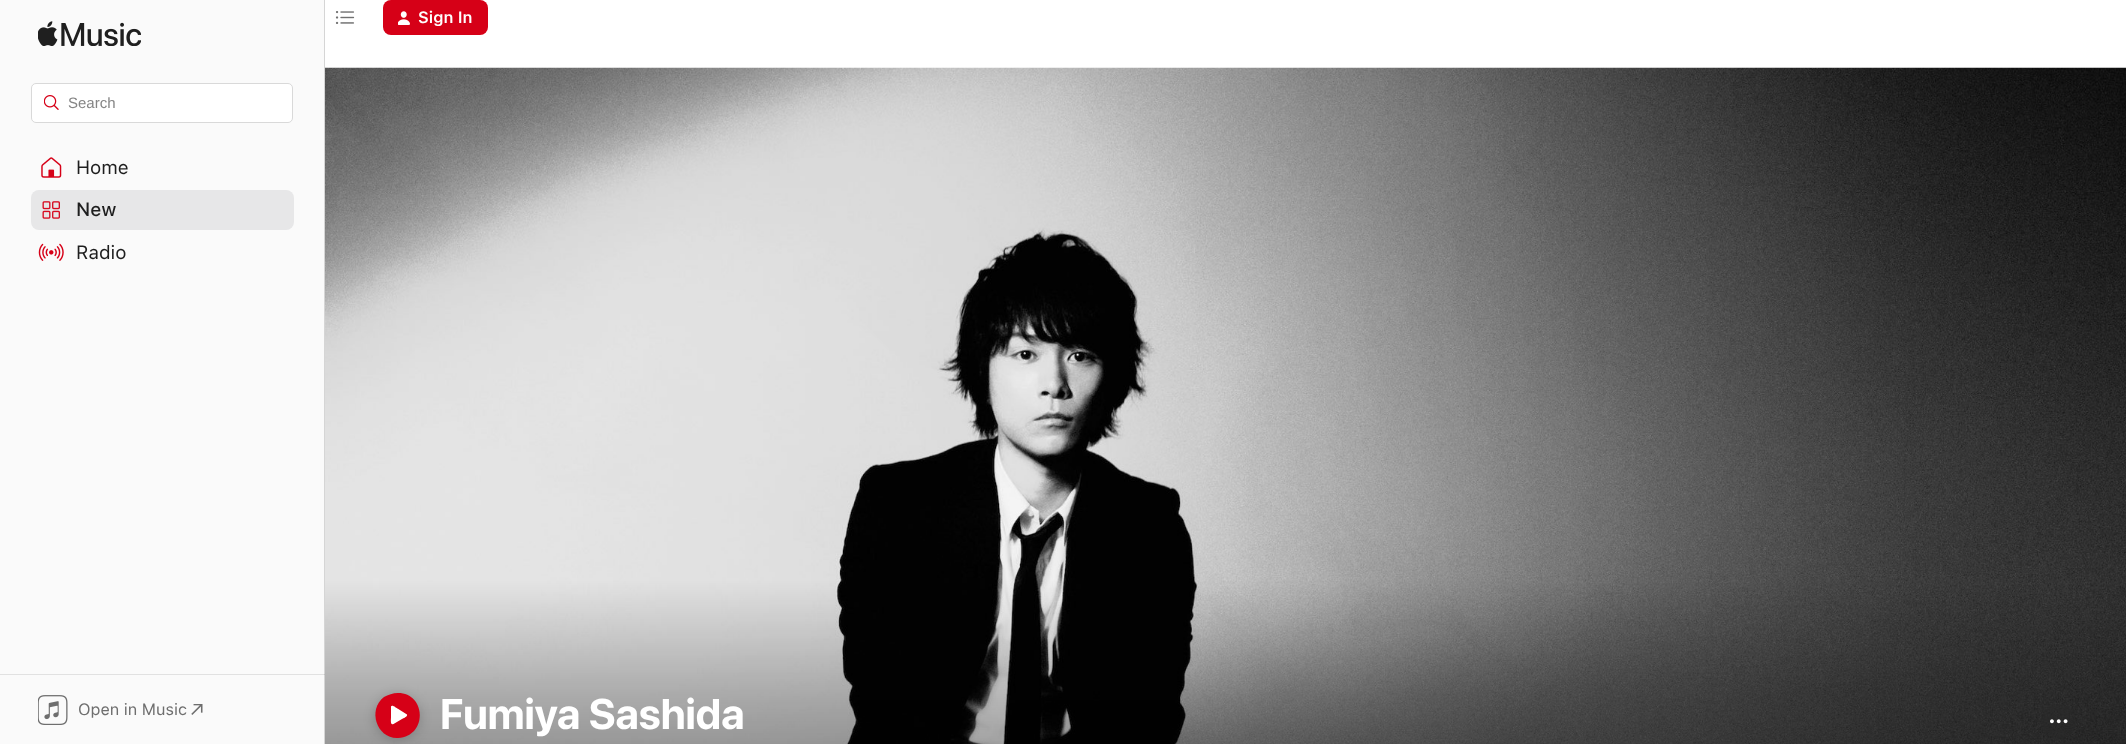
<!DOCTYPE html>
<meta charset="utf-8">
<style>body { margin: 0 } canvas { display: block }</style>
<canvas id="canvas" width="2126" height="744"></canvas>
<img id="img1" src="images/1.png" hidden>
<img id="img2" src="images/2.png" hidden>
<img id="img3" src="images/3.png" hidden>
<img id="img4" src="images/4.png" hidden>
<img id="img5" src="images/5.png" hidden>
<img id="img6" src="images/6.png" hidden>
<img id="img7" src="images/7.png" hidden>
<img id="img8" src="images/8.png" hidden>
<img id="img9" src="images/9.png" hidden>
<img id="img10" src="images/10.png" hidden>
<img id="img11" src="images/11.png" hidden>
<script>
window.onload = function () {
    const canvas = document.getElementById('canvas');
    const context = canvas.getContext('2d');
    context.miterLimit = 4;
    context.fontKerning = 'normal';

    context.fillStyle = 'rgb(255, 255, 255)';
    context.fillRect(0, 0, 2126, 744);
    context.drawImage(document.getElementById('img1'), 335, 11, 20, 13);
    context.fillStyle = 'rgb(214, 0, 23)';
    context.beginPath();
    context.roundRect(383, 0, 105, 35, 8);
    context.fill();
    context.drawImage(document.getElementById('img2'), 398, 11, 12, 14);
    context.fillStyle = 'rgb(250, 250, 250)';
    context.fillRect(0, 0, 324, 744);
    context.fillStyle = 'rgb(225, 225, 225)';
    context.fillRect(0, 674, 325, 1);
    context.fillStyle = 'rgb(213, 213, 213)';
    context.fillRect(324, 0, 1, 744);
    context.fillStyle = 'rgb(192, 192, 192)';
    context.fillRect(324, 674, 1, 1);
    context.drawImage(document.getElementById('img3'), 38, 21, 103, 25);
    context.fillStyle = 'rgb(255, 255, 255)';
    context.beginPath();
    context.roundRect(31.5, 83.5, 261, 39, 4.5);
    context.fill();
    context.strokeStyle = 'rgb(217, 217, 217)';
    context.stroke();
    context.drawImage(document.getElementById('img4'), 44, 95, 15, 15);
    context.drawImage(document.getElementById('img5'), 41, 157, 21, 21);
    context.fillStyle = 'rgb(231, 231, 232)';
    context.beginPath();
    context.roundRect(31, 190, 263, 40, 8);
    context.fill();
    context.drawImage(document.getElementById('img6'), 42, 201, 18, 18);
    context.drawImage(document.getElementById('img7'), 38, 243, 26, 18);
    context.drawImage(document.getElementById('img8'), 38, 695, 30, 30);
    context.drawImage(document.getElementById('img9'), 191, 704, 12, 11);
    context.drawImage(document.getElementById('img10'), 325, 67, 1801, 677);
    context.fillStyle = 'rgba(0, 0, 0, 0.2)';
    context.filter = 'blur(6px)';
    context.beginPath();
    context.roundRect(375, 695, 45, 45, 22.5);
    context.fill();
    context.filter = 'none';
    context.fillStyle = 'rgb(214, 0, 23)';
    context.beginPath();
    context.moveTo(398, 693);
    context.bezierCurveTo(393, 693, 388, 695, 384, 697);
    context.bezierCurveTo(367, 710, 377, 739, 398, 738);
    context.bezierCurveTo(428, 736, 426, 693, 398, 693);
    context.closePath();
    context.fill();
    context.fillStyle = 'rgb(255, 255, 255)';
    context.beginPath();
    context.moveTo(393.5, 724);
    context.bezierCurveTo(390, 726, 391, 718.5, 391, 717.5);
    context.lineTo(391, 706.5);
    context.bezierCurveTo(392, 704, 397, 708.5, 397.5, 708.5);
    context.lineTo(407, 714.5);
    context.bezierCurveTo(408, 716.5, 403, 718.5, 402, 719);
    context.closePath();
    context.fill();
    context.fillStyle = 'rgba(40, 40, 40, 0.5)';
    context.beginPath();
    context.arc(2058.5, 721.5, 17.5, 0, 2 * Math.PI);
    context.fill();
    context.drawImage(document.getElementById('img11'), 2050, 719, 18, 5);
    context.font = '600 16.25px SF';
    context.fillStyle = 'rgb(255, 255, 255)';
    context.fillText('Sign In', 418, 23);
    context.font = '15px Liberation Sans';
    context.fillStyle = 'rgb(133, 133, 133)';
    context.fillText('Search', 68, 108);
    context.font = '19px SF';
    context.fillStyle = 'rgb(30, 30, 30)';
    context.fillText('Home', 76, 174);
    context.font = '500 19px SF';
    context.fillText('New', 76, 216);
    context.font = '19px SF';
    context.fillText('Radio', 76, 259);
    context.font = '16.25px SF';
    context.fillStyle = 'rgb(110, 110, 110)';
    context.fillText('Open in Music', 78, 715);
    context.font = 'bold 42.5px SF';
    context.fillStyle = 'rgb(255, 255, 255)';
    context.fillText('Fumiya Sashida', 440, 729);
};
</script>
